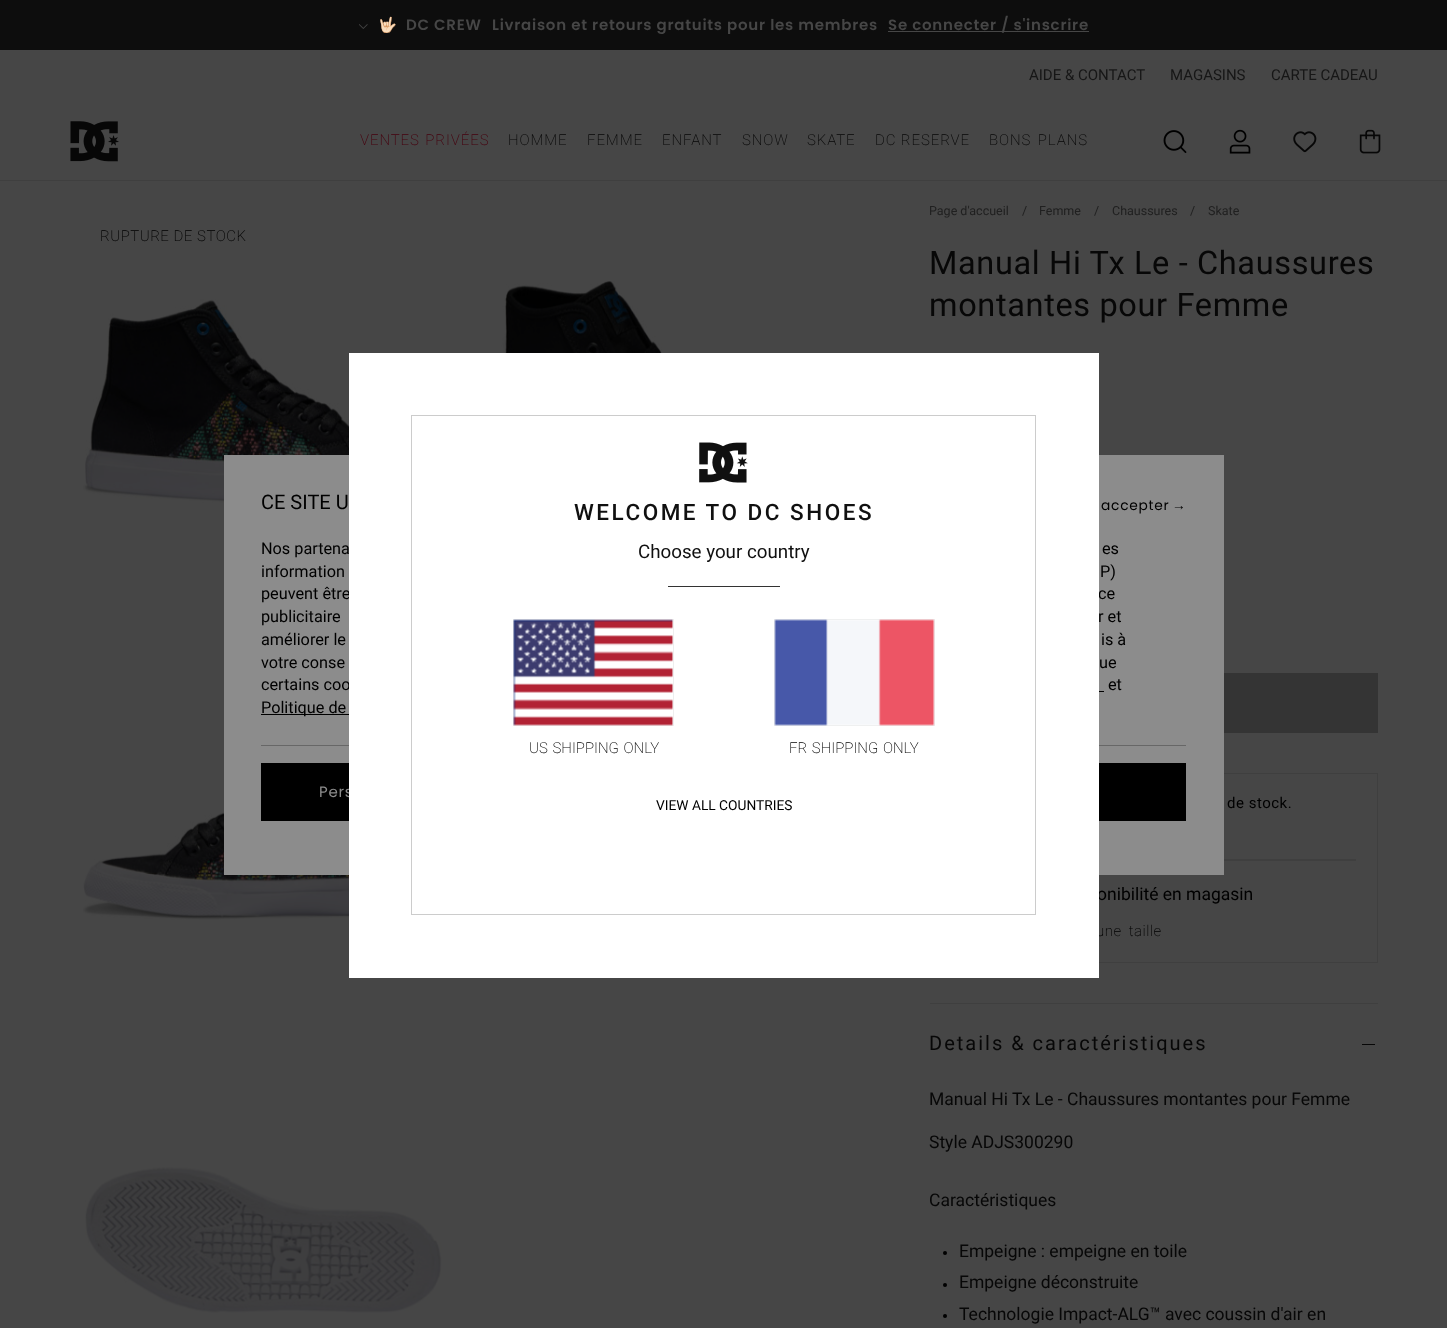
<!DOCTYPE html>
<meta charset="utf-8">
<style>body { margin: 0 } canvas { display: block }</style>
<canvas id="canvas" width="1447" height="1328"></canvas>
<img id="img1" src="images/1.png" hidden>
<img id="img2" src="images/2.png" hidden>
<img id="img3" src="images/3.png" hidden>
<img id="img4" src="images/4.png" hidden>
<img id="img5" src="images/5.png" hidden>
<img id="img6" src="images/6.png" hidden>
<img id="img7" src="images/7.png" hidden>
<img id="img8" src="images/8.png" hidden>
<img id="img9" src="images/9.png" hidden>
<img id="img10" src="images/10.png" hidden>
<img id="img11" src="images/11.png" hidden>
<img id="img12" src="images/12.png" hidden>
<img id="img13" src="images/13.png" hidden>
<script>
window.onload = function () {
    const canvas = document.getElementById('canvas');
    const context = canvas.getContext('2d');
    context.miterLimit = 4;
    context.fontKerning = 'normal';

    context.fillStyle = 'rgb(70, 70, 70)';
    context.fillRect(0, 0, 1447, 1328);
    context.fillStyle = 'rgb(13, 13, 13)';
    context.fillRect(0, 0, 1447, 50);
    context.drawImage(document.getElementById('img1'), 359, 24, 9, 5);
    context.fillStyle = 'rgb(70, 70, 70)';
    context.fillRect(888, 31, 201, 1);
    context.fillStyle = 'rgb(63, 63, 63)';
    context.fillRect(0, 180, 1447, 1);
    context.drawImage(document.getElementById('img2'), 70, 121, 49, 41);
    context.drawImage(document.getElementById('img3'), 1163, 130, 24, 23);
    context.drawImage(document.getElementById('img4'), 1229, 129, 22, 25);
    context.drawImage(document.getElementById('img5'), 1293, 131, 24, 22);
    context.drawImage(document.getElementById('img6'), 1359, 129, 22, 25);
    context.drawImage(document.getElementById('img7'), 83, 299, 360, 206);
    context.drawImage(document.getElementById('img8'), 483, 281, 358, 72);
    context.drawImage(document.getElementById('img9'), 83, 717, 266, 203);
    context.drawImage(document.getElementById('img10'), 85, 1167, 357, 146);
    context.fillStyle = 'rgb(52, 52, 52)';
    context.fillRect(1224, 673, 154, 60);
    context.strokeStyle = 'rgb(63, 63, 63)';
    context.strokeRect(930.5, 773.5, 447, 189);
    context.fillStyle = 'rgb(63, 63, 63)';
    context.fillRect(1224, 859, 132, 2);
    context.fillRect(930, 1003, 448, 1);
    context.fillStyle = 'rgb(7, 7, 7)';
    context.fillRect(1362, 1044, 13, 1);
    context.fillStyle = 'rgb(0, 0, 0)';
    context.beginPath();
    context.arc(945, 1253, 2, 0, 2 * Math.PI);
    context.fill();
    context.beginPath();
    context.arc(945, 1285, 2, 0, 2 * Math.PI);
    context.fill();
    context.beginPath();
    context.arc(945, 1316, 2, 0, 2 * Math.PI);
    context.fill();
    context.fillStyle = 'rgb(140, 140, 140)';
    context.fillRect(224, 455, 1000, 420);
    context.fillStyle = 'rgb(0, 0, 0)';
    context.fillRect(1099, 691, 5, 1);
    context.fillRect(261, 714, 88, 1);
    context.fillStyle = 'rgb(103, 103, 103)';
    context.fillRect(261, 745, 925, 1);
    context.fillStyle = 'rgb(0, 0, 0)';
    context.fillRect(261, 763, 88, 58);
    context.fillRect(1099, 763, 87, 58);
    context.font = '15px Noto Color Emoji';
    context.fillStyle = 'rgb(70, 70, 70)';
    context.fillText('🤟🏻', 378, 30);
    context.letterSpacing = '0.75px';
    context.font = '600 15px Poppins';
    context.fillText('DC CREW', 406, 30);
    context.fillText('Livraison et retours gratuits pour les membres', 492, 30);
    context.fillText('Se connecter / s\'inscrire', 888, 30);
    context.letterSpacing = '0px';
    context.font = '15px Roboto';
    context.fillStyle = 'rgb(22, 22, 22)';
    context.fillText('AIDE & CONTACT', 1029, 80);
    context.fillText('MAGASINS', 1170, 80);
    context.fillText('CARTE CADEAU', 1271, 80);
    context.letterSpacing = '0.9px';
    context.wordSpacing = '1px';
    context.font = '200 15px Roboto';
    context.fillStyle = 'rgb(70, 0, 14)';
    context.fillText('VENTES PRIVÉES', 360, 145);
    context.wordSpacing = '0px';
    context.fillStyle = 'rgb(7, 7, 7)';
    context.fillText('HOMME', 508, 145);
    context.fillText('FEMME', 587, 145);
    context.fillText('ENFANT', 662, 145);
    context.fillText('SNOW', 742, 145);
    context.fillText('SKATE', 807, 145);
    context.fillText('DC RESERVE', 875, 145);
    context.wordSpacing = '2px';
    context.fillText('BONS PLANS', 989, 145);
    context.letterSpacing = '0.5px';
    context.wordSpacing = '0px';
    context.fillStyle = 'rgb(0, 0, 0)';
    context.fillText('RUPTURE DE STOCK', 100, 241);
    context.letterSpacing = '0px';
    context.font = '12.5px Roboto';
    context.fillStyle = 'rgb(32, 32, 32)';
    context.fillText('Page d\'accueil', 929, 215);
    context.fillText('/', 1022, 215);
    context.fillText('Femme', 1039, 215);
    context.fillText('/', 1094, 215);
    context.fillText('Chaussures', 1112, 215);
    context.fillText('/', 1190, 215);
    context.fillText('Skate', 1208, 215);
    context.letterSpacing = '0.65px';
    context.font = '32.5px Roboto';
    context.fillStyle = 'rgb(7, 7, 7)';
    context.fillText('Manual Hi Tx Le - Chaussures', 929, 274);
    context.fillText('montantes pour Femme', 929, 316);
    context.letterSpacing = '0.5px';
    context.font = '15px Roboto';
    context.fillStyle = 'rgb(0, 0, 0)';
    context.fillText('de stock.', 1227, 808);
    context.letterSpacing = '0px';
    context.font = '17.5px Roboto';
    context.fillText('onibilité en magasin', 1097, 900);
    context.letterSpacing = '0.5px';
    context.wordSpacing = '3px';
    context.font = '200 15px Roboto';
    context.fillText('une taille', 1096, 936);
    context.letterSpacing = '2px';
    context.wordSpacing = '0px';
    context.font = '20px Roboto';
    context.fillStyle = 'rgb(7, 7, 7)';
    context.fillText('Details & caractéristiques', 929, 1050);
    context.letterSpacing = '0px';
    context.font = '17.5px Roboto';
    context.fillText('Manual Hi Tx Le - Chaussures montantes pour Femme', 929, 1105);
    context.fillText('Style ADJS300290', 929, 1148);
    context.fillText('Caractéristiques', 929, 1206);
    context.fillText('Empeigne : empeigne en toile', 959, 1257);
    context.fillText('Empeigne déconstruite', 959, 1288);
    context.fillText('Technologie Impact-ALG™ avec coussin d\'air en', 959, 1320);
    context.font = '20px Roboto';
    context.fillStyle = 'rgb(0, 0, 0)';
    context.fillText('CE SITE U', 261, 509);
    context.font = '16.25px Roboto';
    context.fillText('Nos partena', 261, 554);
    context.fillText('es', 1102, 554);
    context.fillText('information', 261, 577);
    context.fillText('P)', 1100, 577);
    context.fillText('peuvent être', 261, 599);
    context.fillText('ce', 1098, 599);
    context.fillText('publicitaire', 261, 622);
    context.fillText('r et', 1098, 622);
    context.fillText('améliorer le', 261, 645);
    context.fillText('is à', 1101, 645);
    context.fillText('votre conse', 261, 668);
    context.fillText('ue', 1099, 668);
    context.fillText('certains coo', 261, 690);
    context.fillText('et', 1108, 690);
    context.fillText('Politique de', 261, 713);
    context.letterSpacing = '0.75px';
    context.font = '13.75px Poppins';
    context.fillText('accepter', 1101, 510);
    context.font = '13.75px Liberation Sans';
    context.fillText('→', 1172, 510);
    context.font = '15px Poppins';
    context.fillStyle = 'rgb(140, 140, 140)';
    context.fillText('Pers', 319, 797);
    context.fillStyle = 'rgb(255, 255, 255)';
    context.fillRect(349, 353, 750, 625);
    context.strokeStyle = 'rgb(204, 204, 204)';
    context.strokeRect(411.5, 415.5, 624, 499);
    context.drawImage(document.getElementById('img11'), 699, 442, 49, 41);
    context.letterSpacing = '2.5px';
    context.font = '500 22.5px Roboto';
    context.fillStyle = 'rgb(16, 16, 16)';
    context.fillText('WELCOME TO DC SHOES', 574, 520);
    context.letterSpacing = '0px';
    context.font = '18.75px Roboto';
    context.fillText('Choose your country', 638, 558);
    context.fillStyle = 'rgb(51, 51, 51)';
    context.fillRect(668, 586, 112, 1);
    context.strokeStyle = 'rgb(238, 238, 238)';
    context.strokeRect(513.5, 619.5, 160, 106);
    context.drawImage(document.getElementById('img12'), 513, 619, 160, 107);
    context.wordSpacing = '1px';
    context.font = '200 15px Roboto';
    context.fillStyle = 'rgb(0, 0, 0)';
    context.fillText('US SHIPPING ONLY', 529, 753);
    context.strokeRect(774.5, 619.5, 160, 106);
    context.drawImage(document.getElementById('img13'), 774, 619, 161, 107);
    context.fillText('FR SHIPPING ONLY', 789, 753);
    context.wordSpacing = '0px';
    context.font = '13.75px Roboto';
    context.fillText('VIEW ALL COUNTRIES', 656, 810);
};
</script>
